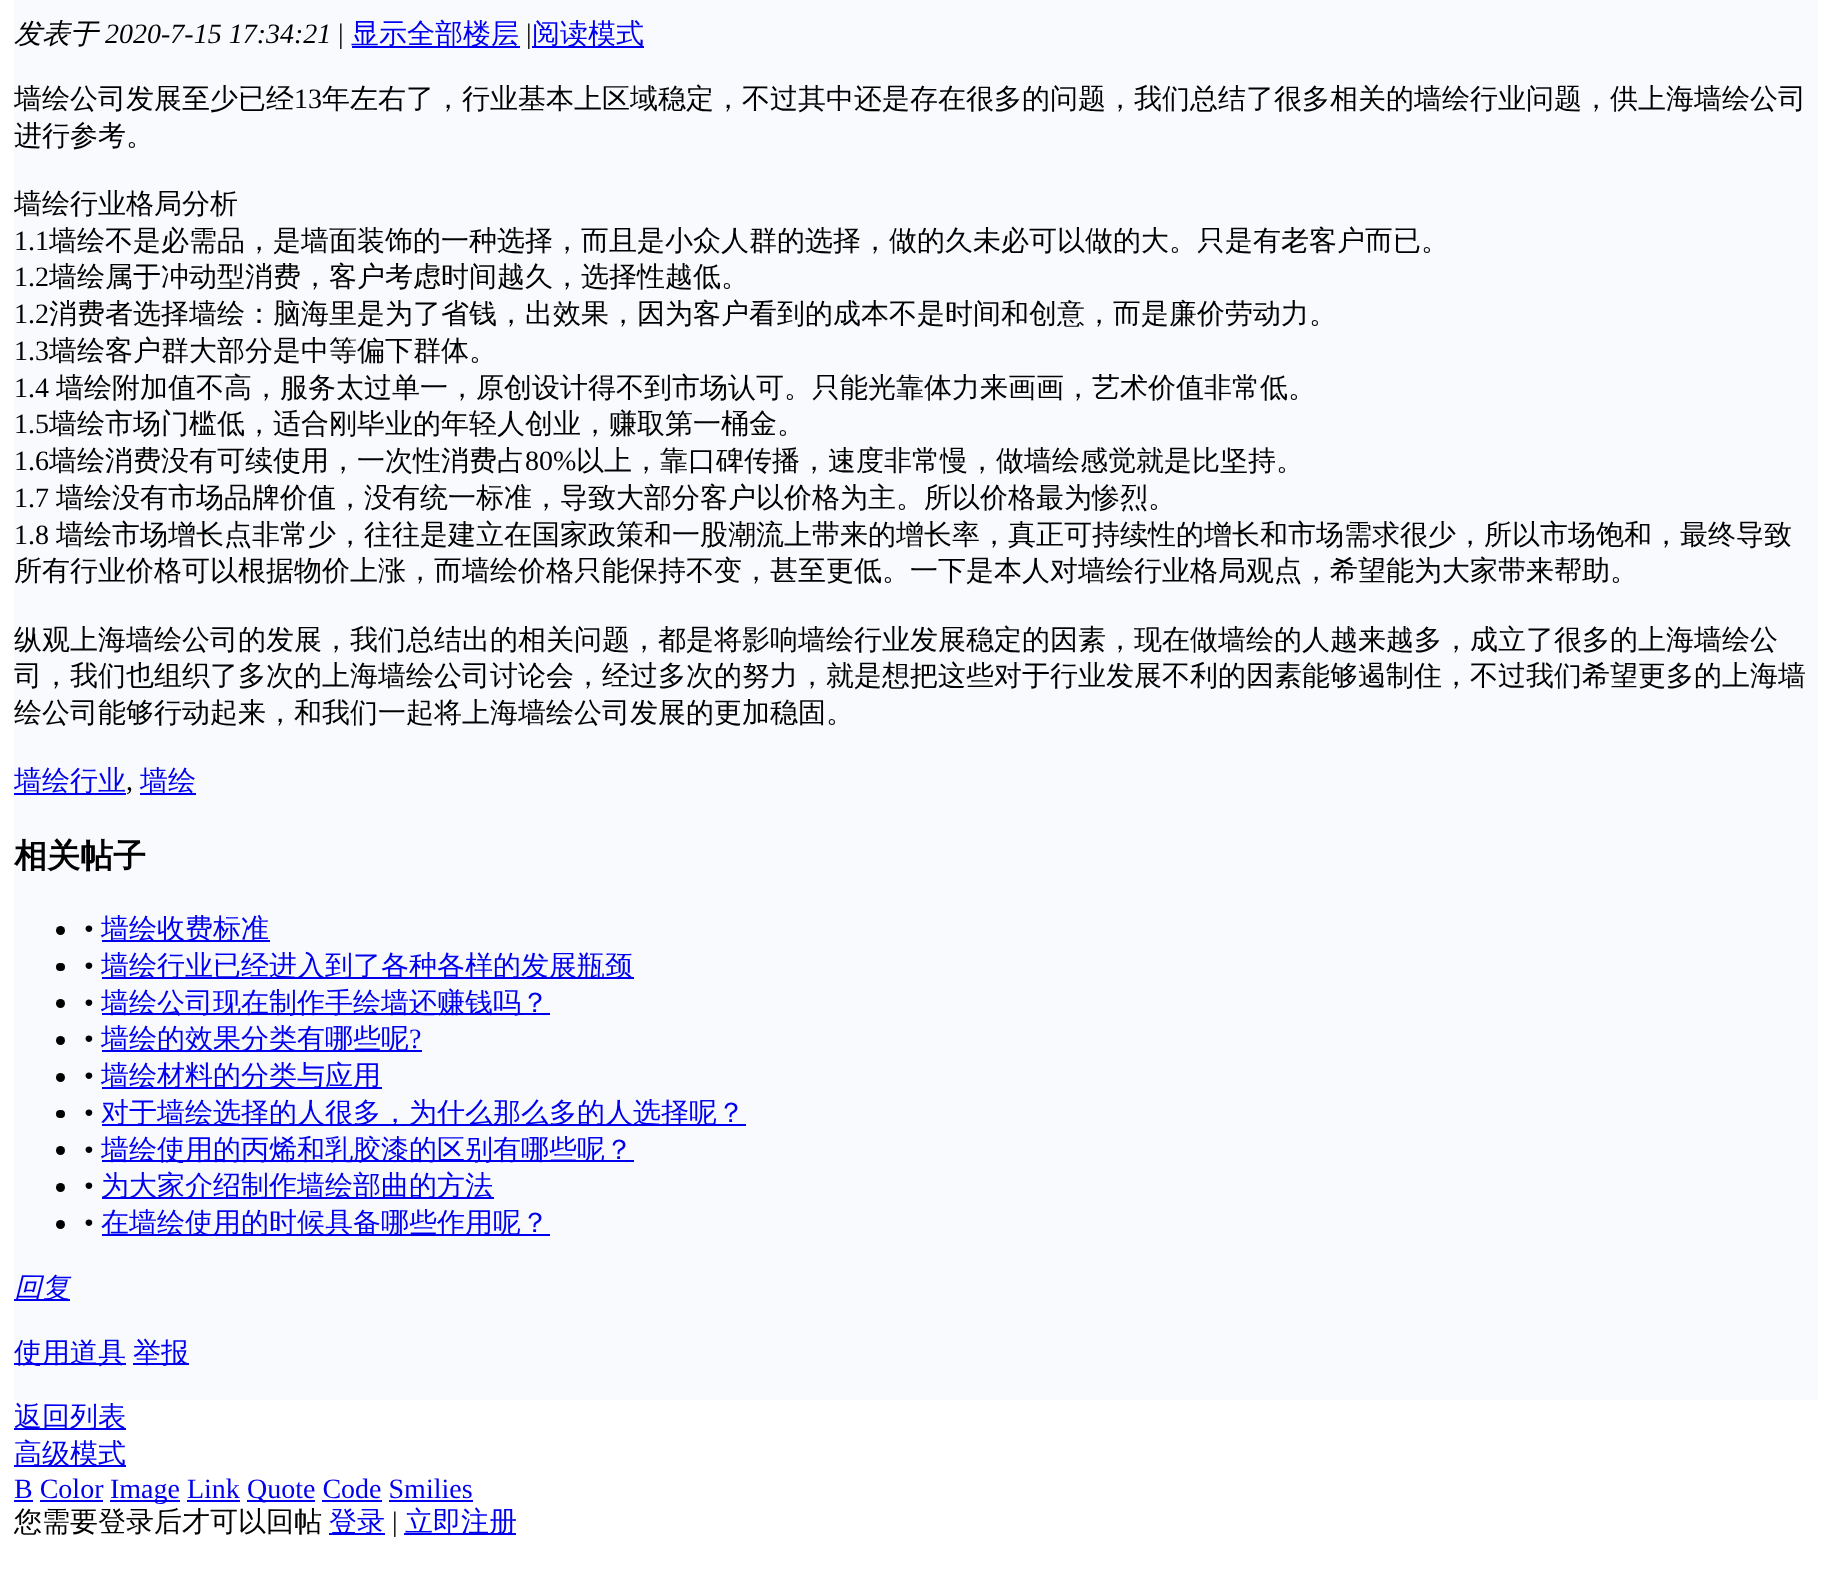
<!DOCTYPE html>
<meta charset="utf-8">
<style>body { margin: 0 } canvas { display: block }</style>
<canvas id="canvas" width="1831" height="1569"></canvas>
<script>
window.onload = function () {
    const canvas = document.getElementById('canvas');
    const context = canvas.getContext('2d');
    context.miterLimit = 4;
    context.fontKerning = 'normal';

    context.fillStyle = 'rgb(255, 255, 255)';
    context.fillRect(0, 0, 1831, 1569);
    context.fillStyle = 'rgb(249, 250, 253)';
    context.fillRect(14, 0, 1804, 1400);
    context.fillStyle = 'rgb(0, 0, 238)';
    context.fillRect(352, 46, 168, 2);
    context.fillRect(532, 46, 112, 2);
    context.fillRect(14, 793, 112, 2);
    context.fillRect(140, 793, 56, 2);
    context.fillStyle = 'rgb(0, 0, 0)';
    context.beginPath();
    context.arc(60.5, 930.5, 4.5, 0, 2 * Math.PI);
    context.fill();
    context.fillStyle = 'rgb(0, 0, 238)';
    context.fillRect(102, 940, 168, 2);
    context.fillStyle = 'rgb(0, 0, 0)';
    context.beginPath();
    context.roundRect(56, 963, 9, 8, 4);
    context.fill();
    context.fillStyle = 'rgb(0, 0, 238)';
    context.fillRect(102, 977, 532, 2);
    context.fillStyle = 'rgb(0, 0, 0)';
    context.beginPath();
    context.arc(60.5, 1003.5, 4.5, 0, 2 * Math.PI);
    context.fill();
    context.fillStyle = 'rgb(0, 0, 238)';
    context.fillRect(102, 1013, 448, 2);
    context.fillStyle = 'rgb(0, 0, 0)';
    context.beginPath();
    context.arc(60.5, 1040.5, 4.5, 0, 2 * Math.PI);
    context.fill();
    context.fillStyle = 'rgb(0, 0, 238)';
    context.fillRect(102, 1050, 320, 2);
    context.fillStyle = 'rgb(0, 0, 0)';
    context.beginPath();
    context.arc(60.5, 1077.5, 4.5, 0, 2 * Math.PI);
    context.fill();
    context.fillStyle = 'rgb(0, 0, 238)';
    context.fillRect(102, 1087, 280, 2);
    context.fillStyle = 'rgb(0, 0, 0)';
    context.beginPath();
    context.roundRect(56, 1110, 9, 8, 4);
    context.fill();
    context.fillStyle = 'rgb(0, 0, 238)';
    context.fillRect(102, 1124, 644, 2);
    context.fillStyle = 'rgb(0, 0, 0)';
    context.beginPath();
    context.arc(60.5, 1150.5, 4.5, 0, 2 * Math.PI);
    context.fill();
    context.fillStyle = 'rgb(0, 0, 238)';
    context.fillRect(102, 1160, 532, 2);
    context.fillStyle = 'rgb(0, 0, 0)';
    context.beginPath();
    context.arc(60.5, 1187.5, 4.5, 0, 2 * Math.PI);
    context.fill();
    context.fillStyle = 'rgb(0, 0, 238)';
    context.fillRect(102, 1197, 392, 2);
    context.fillStyle = 'rgb(0, 0, 0)';
    context.beginPath();
    context.arc(60.5, 1224.5, 4.5, 0, 2 * Math.PI);
    context.fill();
    context.fillStyle = 'rgb(0, 0, 238)';
    context.fillRect(102, 1234, 448, 2);
    context.fillRect(14, 1299, 56, 2);
    context.fillRect(14, 1363, 112, 2);
    context.fillRect(133, 1363, 56, 2);
    context.fillRect(14, 1428, 112, 2);
    context.fillRect(14, 1465, 112, 2);
    context.fillRect(14, 1500, 19, 2);
    context.fillRect(110, 1500, 70, 2);
    context.fillRect(247, 1500, 68, 2);
    context.fillRect(40, 1500, 63, 2);
    context.fillRect(187, 1500, 53, 2);
    context.fillRect(322, 1500, 60, 2);
    context.fillRect(389, 1500, 84, 2);
    context.fillRect(329, 1533, 56, 2);
    context.fillRect(404, 1533, 112, 2);
    context.font = 'italic 500 28px WenQuanYi Zen Hei';
    context.fillStyle = 'rgb(0, 0, 0)';
    context.fillText('发表于', 14, 43);
    context.font = 'italic 28px Liberation Serif';
    context.fillText('2020-7-15 17:34:21', 105, 43);
    context.font = '28px Liberation Serif';
    context.fillText('|', 338, 43);
    context.font = '500 28px WenQuanYi Zen Hei';
    context.fillStyle = 'rgb(0, 0, 238)';
    context.fillText('显示全部楼层', 351, 43);
    context.font = '28px Liberation Serif';
    context.fillStyle = 'rgb(0, 0, 0)';
    context.fillText('|', 526, 43);
    context.font = '500 28px WenQuanYi Zen Hei';
    context.fillStyle = 'rgb(0, 0, 238)';
    context.fillText('阅读模式', 532, 43);
    context.fillStyle = 'rgb(0, 0, 0)';
    context.fillText('墙绘公司发展至少已经', 14, 108);
    context.font = '28px Liberation Serif';
    context.fillText('13', 294, 108);
    context.font = '500 28px WenQuanYi Zen Hei';
    context.fillText('年左右了，行业基本上区域稳定，不过其中还是存在很多的问题，我们总结了很多相关的墙绘行业问题，供上海墙绘公司', 322, 108);
    context.fillText('进行参考。', 14, 145);
    context.fillText('墙绘行业格局分析', 14, 213);
    context.font = '28px Liberation Serif';
    context.fillText('1.1', 14, 250);
    context.font = '500 28px WenQuanYi Zen Hei';
    context.fillText('墙绘不是必需品，是墙面装饰的一种选择，而且是小众人群的选择，做的久未必可以做的大。只是有老客户而已。', 49, 250);
    context.font = '28px Liberation Serif';
    context.fillText('1.2', 14, 286);
    context.font = '500 28px WenQuanYi Zen Hei';
    context.fillText('墙绘属于冲动型消费，客户考虑时间越久，选择性越低。', 49, 286);
    context.font = '28px Liberation Serif';
    context.fillText('1.2', 14, 323);
    context.font = '500 28px WenQuanYi Zen Hei';
    context.fillText('消费者选择墙绘：脑海里是为了省钱，出效果，因为客户看到的成本不是时间和创意，而是廉价劳动力。', 49, 323);
    context.font = '28px Liberation Serif';
    context.fillText('1.3', 14, 360);
    context.font = '500 28px WenQuanYi Zen Hei';
    context.fillText('墙绘客户群大部分是中等偏下群体。', 49, 360);
    context.font = '28px Liberation Serif';
    context.fillText('1.4', 14, 397);
    context.font = '500 28px WenQuanYi Zen Hei';
    context.fillText('墙绘附加值不高，服务太过单一，原创设计得不到市场认可。只能光靠体力来画画，艺术价值非常低。', 56, 397);
    context.font = '28px Liberation Serif';
    context.fillText('1.5', 14, 433);
    context.font = '500 28px WenQuanYi Zen Hei';
    context.fillText('墙绘市场门槛低，适合刚毕业的年轻人创业，赚取第一桶金。', 49, 433);
    context.font = '28px Liberation Serif';
    context.fillText('1.6', 14, 470);
    context.font = '500 28px WenQuanYi Zen Hei';
    context.fillText('墙绘消费没有可续使用，一次性消费占', 49, 470);
    context.font = '28px Liberation Serif';
    context.fillText('80%', 525, 470);
    context.font = '500 28px WenQuanYi Zen Hei';
    context.fillText('以上，靠口碑传播，速度非常慢，做墙绘感觉就是比坚持。', 576, 470);
    context.font = '28px Liberation Serif';
    context.fillText('1.7', 14, 507);
    context.font = '500 28px WenQuanYi Zen Hei';
    context.fillText('墙绘没有市场品牌价值，没有统一标准，导致大部分客户以价格为主。所以价格最为惨烈。', 56, 507);
    context.font = '28px Liberation Serif';
    context.fillText('1.8', 14, 544);
    context.font = '500 28px WenQuanYi Zen Hei';
    context.fillText('墙绘市场增长点非常少，往往是建立在国家政策和一股潮流上带来的增长率，真正可持续性的增长和市场需求很少，所以市场饱和，最终导致', 56, 544);
    context.fillText('所有行业价格可以根据物价上涨，而墙绘价格只能保持不变，甚至更低。一下是本人对墙绘行业格局观点，希望能为大家带来帮助。', 14, 580);
    context.fillText('纵观上海墙绘公司的发展，我们总结出的相关问题，都是将影响墙绘行业发展稳定的因素，现在做墙绘的人越来越多，成立了很多的上海墙绘公', 14, 649);
    context.fillText('司，我们也组织了多次的上海墙绘公司讨论会，经过多次的努力，就是想把这些对于行业发展不利的因素能够遏制住，不过我们希望更多的上海墙', 14, 685);
    context.fillText('绘公司能够行动起来，和我们一起将上海墙绘公司发展的更加稳固。', 14, 722);
    context.fillStyle = 'rgb(0, 0, 238)';
    context.fillText('墙绘行业', 14, 790);
    context.font = '28px Liberation Serif';
    context.fillStyle = 'rgb(0, 0, 0)';
    context.fillText(',', 126, 790);
    context.font = '500 28px WenQuanYi Zen Hei';
    context.fillStyle = 'rgb(0, 0, 238)';
    context.fillText('墙绘', 140, 790);
    context.font = 'bold 33px WenQuanYi Zen Hei';
    context.fillStyle = 'rgb(0, 0, 0)';
    context.fillText('相关帖子', 14, 867);
    context.font = '28px Liberation Serif';
    context.fillText('•', 84, 938);
    context.font = '500 28px WenQuanYi Zen Hei';
    context.fillStyle = 'rgb(0, 0, 238)';
    context.fillText('墙绘收费标准', 101, 938);
    context.font = '28px Liberation Serif';
    context.fillStyle = 'rgb(0, 0, 0)';
    context.fillText('•', 84, 975);
    context.font = '500 28px WenQuanYi Zen Hei';
    context.fillStyle = 'rgb(0, 0, 238)';
    context.fillText('墙绘行业已经进入到了各种各样的发展瓶颈', 101, 975);
    context.font = '28px Liberation Serif';
    context.fillStyle = 'rgb(0, 0, 0)';
    context.fillText('•', 84, 1012);
    context.font = '500 28px WenQuanYi Zen Hei';
    context.fillStyle = 'rgb(0, 0, 238)';
    context.fillText('墙绘公司现在制作手绘墙还赚钱吗？', 101, 1012);
    context.font = '28px Liberation Serif';
    context.fillStyle = 'rgb(0, 0, 0)';
    context.fillText('•', 84, 1048);
    context.font = '500 28px WenQuanYi Zen Hei';
    context.fillStyle = 'rgb(0, 0, 238)';
    context.fillText('墙绘的效果分类有哪些呢', 101, 1048);
    context.font = '28px Liberation Serif';
    context.fillText('?', 409, 1048);
    context.fillStyle = 'rgb(0, 0, 0)';
    context.fillText('•', 84, 1085);
    context.font = '500 28px WenQuanYi Zen Hei';
    context.fillStyle = 'rgb(0, 0, 238)';
    context.fillText('墙绘材料的分类与应用', 101, 1085);
    context.font = '28px Liberation Serif';
    context.fillStyle = 'rgb(0, 0, 0)';
    context.fillText('•', 84, 1122);
    context.font = '500 28px WenQuanYi Zen Hei';
    context.fillStyle = 'rgb(0, 0, 238)';
    context.fillText('对于墙绘选择的人很多，为什么那么多的人选择呢？', 101, 1122);
    context.font = '28px Liberation Serif';
    context.fillStyle = 'rgb(0, 0, 0)';
    context.fillText('•', 84, 1159);
    context.font = '500 28px WenQuanYi Zen Hei';
    context.fillStyle = 'rgb(0, 0, 238)';
    context.fillText('墙绘使用的丙烯和乳胶漆的区别有哪些呢？', 101, 1159);
    context.font = '28px Liberation Serif';
    context.fillStyle = 'rgb(0, 0, 0)';
    context.fillText('•', 84, 1195);
    context.font = '500 28px WenQuanYi Zen Hei';
    context.fillStyle = 'rgb(0, 0, 238)';
    context.fillText('为大家介绍制作墙绘部曲的方法', 101, 1195);
    context.font = '28px Liberation Serif';
    context.fillStyle = 'rgb(0, 0, 0)';
    context.fillText('•', 84, 1232);
    context.font = '500 28px WenQuanYi Zen Hei';
    context.fillStyle = 'rgb(0, 0, 238)';
    context.fillText('在墙绘使用的时候具备哪些作用呢？', 101, 1232);
    context.font = 'italic 500 28px WenQuanYi Zen Hei';
    context.fillText('回复', 14, 1297);
    context.font = '500 28px WenQuanYi Zen Hei';
    context.fillText('使用道具', 14, 1362);
    context.fillText('举报', 133, 1362);
    context.fillText('返回列表', 14, 1426);
    context.fillText('高级模式', 14, 1463);
    context.font = '28px Liberation Serif';
    context.fillText('B Color', 14, 1498);
    context.fillText('Image Link', 110, 1498);
    context.fillText('Quote Code Smilies', 247, 1498);
    context.font = '500 28px WenQuanYi Zen Hei';
    context.fillStyle = 'rgb(0, 0, 0)';
    context.fillText('您需要登录后才可以回帖', 14, 1531);
    context.fillStyle = 'rgb(0, 0, 238)';
    context.fillText('登录', 329, 1531);
    context.font = '28px Liberation Serif';
    context.fillStyle = 'rgb(0, 0, 0)';
    context.fillText('|', 392, 1531);
    context.font = '500 28px WenQuanYi Zen Hei';
    context.fillStyle = 'rgb(0, 0, 238)';
    context.fillText('立即注册', 405, 1531);
};
</script>
